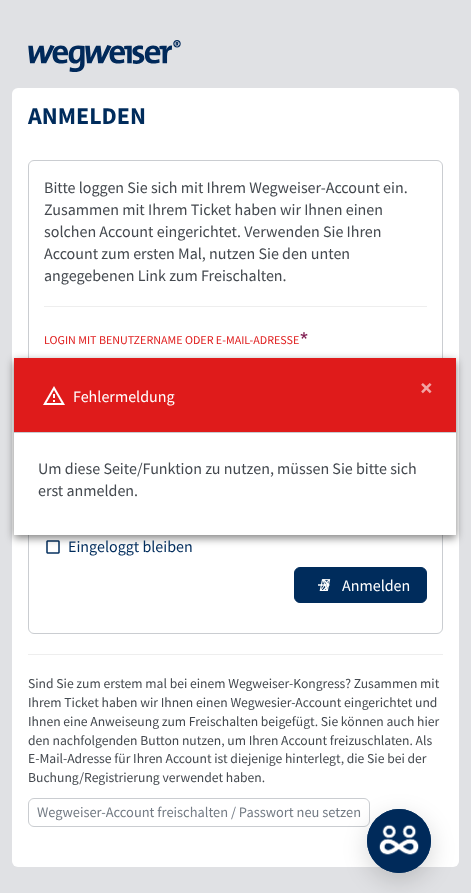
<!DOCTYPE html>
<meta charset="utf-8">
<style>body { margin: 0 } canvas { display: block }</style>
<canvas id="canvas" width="471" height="893"></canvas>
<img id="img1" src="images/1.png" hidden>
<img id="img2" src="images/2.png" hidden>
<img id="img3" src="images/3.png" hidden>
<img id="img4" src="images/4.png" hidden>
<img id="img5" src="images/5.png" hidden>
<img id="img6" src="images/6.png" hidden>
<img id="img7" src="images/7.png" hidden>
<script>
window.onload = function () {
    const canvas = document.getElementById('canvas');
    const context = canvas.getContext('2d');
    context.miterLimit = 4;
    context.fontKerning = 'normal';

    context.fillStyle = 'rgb(224, 225, 228)';
    context.fillRect(0, 0, 471, 893);
    context.drawImage(document.getElementById('img1'), 28, 40, 153, 32);
    context.fillStyle = 'rgb(255, 255, 255)';
    context.beginPath();
    context.roundRect(12, 88, 447, 779, 6);
    context.fill();
    context.beginPath();
    context.roundRect(28.5, 160.5, 414, 473, 5.5);
    context.strokeStyle = 'rgb(202, 205, 209)';
    context.stroke();
    context.fillStyle = 'rgb(238, 238, 238)';
    context.fillRect(44, 306, 383, 1);
    context.drawImage(document.getElementById('img2'), 300, 332, 8, 7);
    context.drawImage(document.getElementById('img3'), 46, 540, 14, 14);
    context.fillStyle = 'rgb(0, 44, 92)';
    context.beginPath();
    context.roundRect(294.5, 567.5, 132, 35, 5.5);
    context.fill();
    context.strokeStyle = 'rgb(0, 44, 92)';
    context.stroke();
    context.drawImage(document.getElementById('img4'), 318, 579, 12, 11);
    context.drawImage(document.getElementById('img5'), 319, 579, 12, 12);
    context.fillStyle = 'rgb(238, 238, 238)';
    context.fillRect(28, 654, 415, 1);
    context.beginPath();
    context.roundRect(28.5, 798.5, 341, 28, 5.5);
    context.strokeStyle = 'rgb(202, 205, 209)';
    context.stroke();
    context.fillStyle = 'rgba(0, 0, 0, 0.5)';
    context.filter = 'blur(4.5px)';
    context.beginPath();
    context.rect(14, 361, 442, 177);
    context.fill();
    context.filter = 'none';
    context.fillStyle = 'rgb(255, 255, 255)';
    context.fillRect(14, 433, 442, 102);
    context.fillStyle = 'rgb(223, 27, 27)';
    context.fillRect(14, 358, 442, 74);
    context.fillStyle = 'rgb(199, 204, 209)';
    context.fillRect(14, 432, 442, 1);
    context.drawImage(document.getElementById('img6'), 43, 386, 22, 19);
    context.fillStyle = 'rgba(0, 0, 0, 0.16)';
    context.filter = 'blur(12px)';
    context.beginPath();
    context.roundRect(367, 817, 64, 64, 32);
    context.fill();
    context.filter = 'none';
    context.drawImage(document.getElementById('img7'), 367, 809, 64, 64);
    context.beginPath();
    context.arc(399, 841, 31.5, 0, 2 * Math.PI);
    context.strokeStyle = 'rgb(0, 44, 92)';
    context.stroke();
    context.font = 'bold 24px Source Sans Pro';
    context.fillStyle = 'rgb(0, 44, 92)';
    context.fillText('ANMELDEN', 28, 124);
    context.font = '16px Source Sans Pro';
    context.fillStyle = 'rgb(68, 73, 79)';
    context.fillText('Bitte loggen Sie sich mit Ihrem Wegweiser-Account ein.', 44, 193);
    context.fillText('Zusammen mit Ihrem Ticket haben wir Ihnen einen', 44, 215);
    context.fillText('solchen Account eingerichtet. Verwenden Sie Ihren', 44, 237);
    context.fillText('Account zum ersten Mal, nutzen Sie den unten', 44, 259);
    context.fillText('angegebenen Link zum Freischalten.', 44, 281);
    context.font = '12px Source Sans Pro';
    context.fillStyle = 'rgb(223, 27, 27)';
    context.fillText('LOGIN MIT BENUTZERNAME ODER E-MAIL-ADRESSE', 44, 344);
    context.font = '16px Source Sans Pro';
    context.fillStyle = 'rgb(0, 44, 92)';
    context.fillText('Eingeloggt bleiben', 68, 552);
    context.fillStyle = 'rgb(255, 255, 255)';
    context.fillText('Anmelden', 342, 591);
    context.font = '13.6px Source Sans Pro';
    context.fillStyle = 'rgb(68, 73, 79)';
    context.fillText('Sind Sie zum erstem mal bei einem Wegweiser-Kongress? Zusammen mit', 28, 688);
    context.fillText('Ihrem Ticket haben wir Ihnen einen Wegwesier-Account eingerichtet und', 28, 707);
    context.fillText('Ihnen eine Anweiseung zum Freischalten beigefügt. Sie können auch hier', 28, 726);
    context.fillText('den nachfolgenden Button nutzen, um Ihren Account freizuschlaten. Als', 28, 745);
    context.fillText('E-Mail-Adresse für Ihren Account ist diejenige hinterlegt, die Sie bei der', 28, 763);
    context.fillText('Buchung/Registrierung verwendet haben.', 28, 782);
    context.font = '14.4px Source Sans Pro';
    context.fillStyle = 'rgb(116, 124, 133)';
    context.fillText('Wegweiser-Account freischalten / Passwort neu setzen', 37, 817);
    context.font = 'bold 24px Source Sans Pro';
    context.fillStyle = 'rgb(242, 164, 164)';
    context.fillText('×', 420, 396);
    context.font = '16px Source Sans Pro';
    context.fillStyle = 'rgb(255, 255, 255)';
    context.fillText('Fehlermeldung', 73, 402);
    context.fillStyle = 'rgb(68, 73, 79)';
    context.fillText('Um diese Seite/Funktion zu nutzen, müssen Sie bitte sich', 38, 474);
    context.fillText('erst anmelden.', 38, 496);
};
</script>
